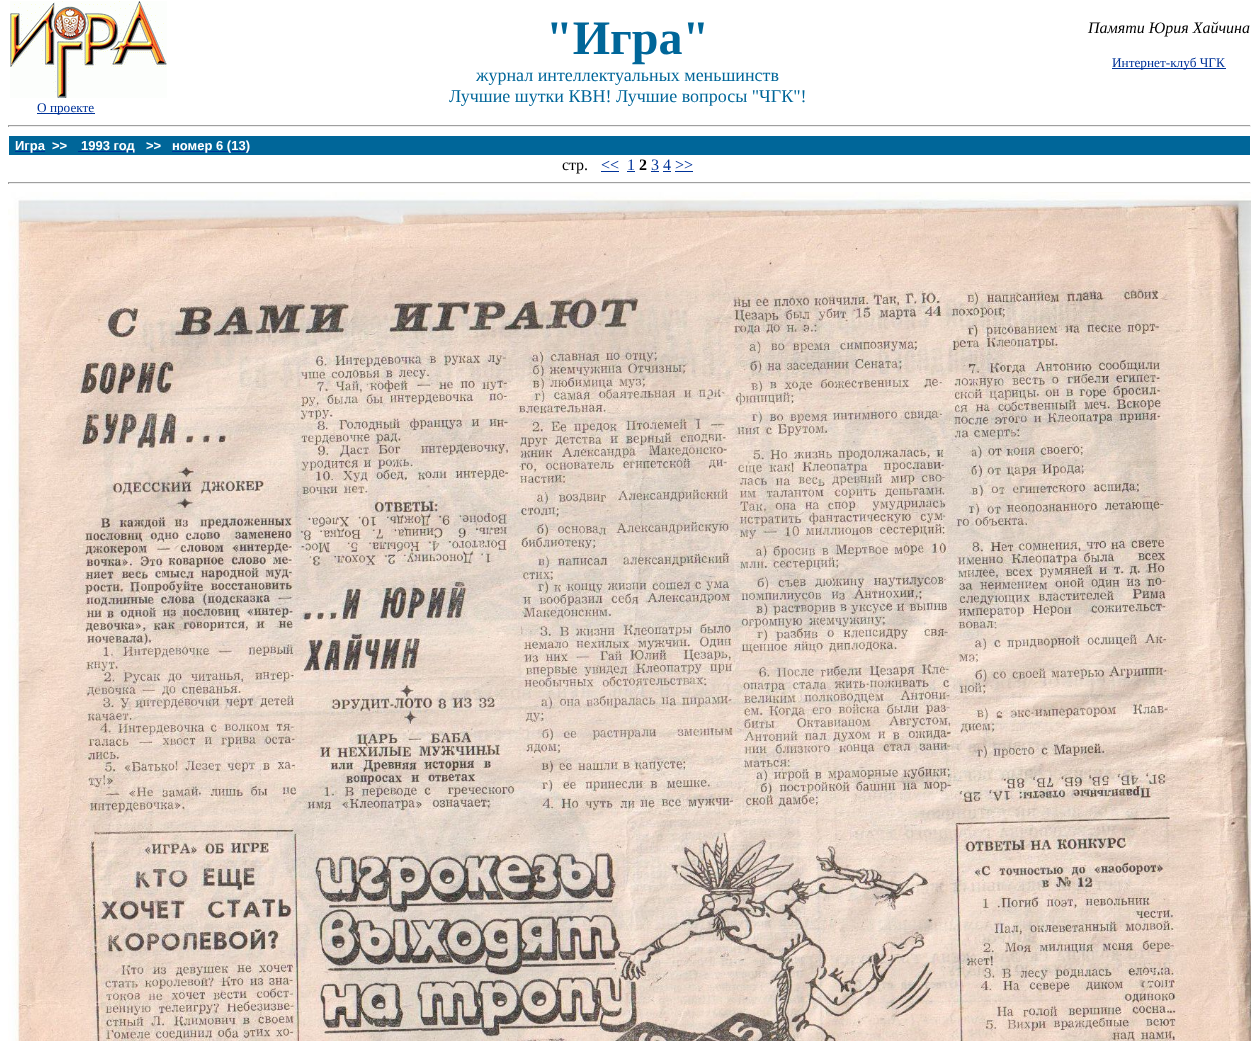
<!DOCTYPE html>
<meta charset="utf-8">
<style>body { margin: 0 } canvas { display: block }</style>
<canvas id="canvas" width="1259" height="1041"></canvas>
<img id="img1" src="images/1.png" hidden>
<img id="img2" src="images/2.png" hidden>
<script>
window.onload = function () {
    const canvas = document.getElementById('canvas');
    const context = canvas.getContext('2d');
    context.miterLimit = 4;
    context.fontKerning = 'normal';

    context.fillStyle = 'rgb(255, 255, 255)';
    context.fillRect(0, 0, 1259, 1041);
    context.fillStyle = 'rgb(0, 51, 153)';
    context.fillRect(1112, 68, 114, 1);
    context.drawImage(document.getElementById('img1'), 10, 1, 157, 97);
    context.fillRect(37, 113, 58, 1);
    context.fillStyle = 'rgb(159, 159, 159)';
    context.fillRect(8, 125, 1243, 1);
    context.fillStyle = 'rgb(238, 238, 238)';
    context.fillRect(1250, 125, 1, 2);
    context.fillRect(8, 126, 1243, 1);
    context.fillStyle = 'rgb(159, 159, 159)';
    context.fillRect(8, 125, 1, 2);
    context.fillStyle = 'rgb(0, 102, 153)';
    context.fillRect(9, 136, 1241, 19);
    context.fillStyle = 'rgb(0, 51, 153)';
    context.fillRect(15, 151, 30, 1);
    context.fillRect(78, 151, 57, 1);
    context.fillRect(172, 151, 78, 1);
    context.fillRect(601, 171, 18, 1);
    context.fillRect(627, 171, 8, 1);
    context.fillRect(651, 171, 8, 1);
    context.fillRect(663, 171, 8, 1);
    context.fillRect(675, 171, 18, 1);
    context.fillStyle = 'rgb(159, 159, 159)';
    context.fillRect(8, 182, 1243, 1);
    context.fillStyle = 'rgb(238, 238, 238)';
    context.fillRect(1250, 182, 1, 2);
    context.fillRect(8, 183, 1243, 1);
    context.fillStyle = 'rgb(159, 159, 159)';
    context.fillRect(8, 182, 1, 2);
    context.drawImage(document.getElementById('img2'), 8, 192, 1243, 849);
    context.font = 'bold 48px Liberation Serif';
    context.fillStyle = 'rgb(0, 102, 153)';
    context.fillText('"Игра"', 546, 54);
    context.font = '18px Liberation Serif';
    context.fillText('журнал интеллектуальных меньшинств', 476, 81);
    context.fillText('Лучшие шутки КВН! Лучшие вопросы "ЧГК"!', 449, 102);
    context.font = 'italic 16px Liberation Serif';
    context.fillStyle = 'rgb(0, 0, 0)';
    context.fillText('Памяти Юрия Хайчина', 1088, 33);
    context.font = '13.25px Liberation Serif';
    context.fillStyle = 'rgb(0, 51, 153)';
    context.fillText('Интернет-клуб ЧГК', 1112, 67);
    context.fillText('О проекте', 37, 112);
    context.font = 'bold 13px Liberation Sans';
    context.fillStyle = 'rgb(255, 255, 255)';
    context.fillText('Игра', 15, 150);
    context.fillText('>>', 52, 150);
    context.fillText('1993 год', 81, 150);
    context.fillText('>>', 146, 150);
    context.fillText('номер 6 (13)', 172, 150);
    context.font = '16px Liberation Serif';
    context.fillStyle = 'rgb(0, 0, 0)';
    context.fillText('стp.', 562, 170);
    context.fillStyle = 'rgb(0, 51, 153)';
    context.fillText('<<', 601, 170);
    context.fillText('1', 627, 170);
    context.font = 'bold 16px Liberation Serif';
    context.fillStyle = 'rgb(0, 0, 0)';
    context.fillText('2', 639, 170);
    context.font = '16px Liberation Serif';
    context.fillStyle = 'rgb(0, 51, 153)';
    context.fillText('3 4 >>', 651, 170);
};
</script>
